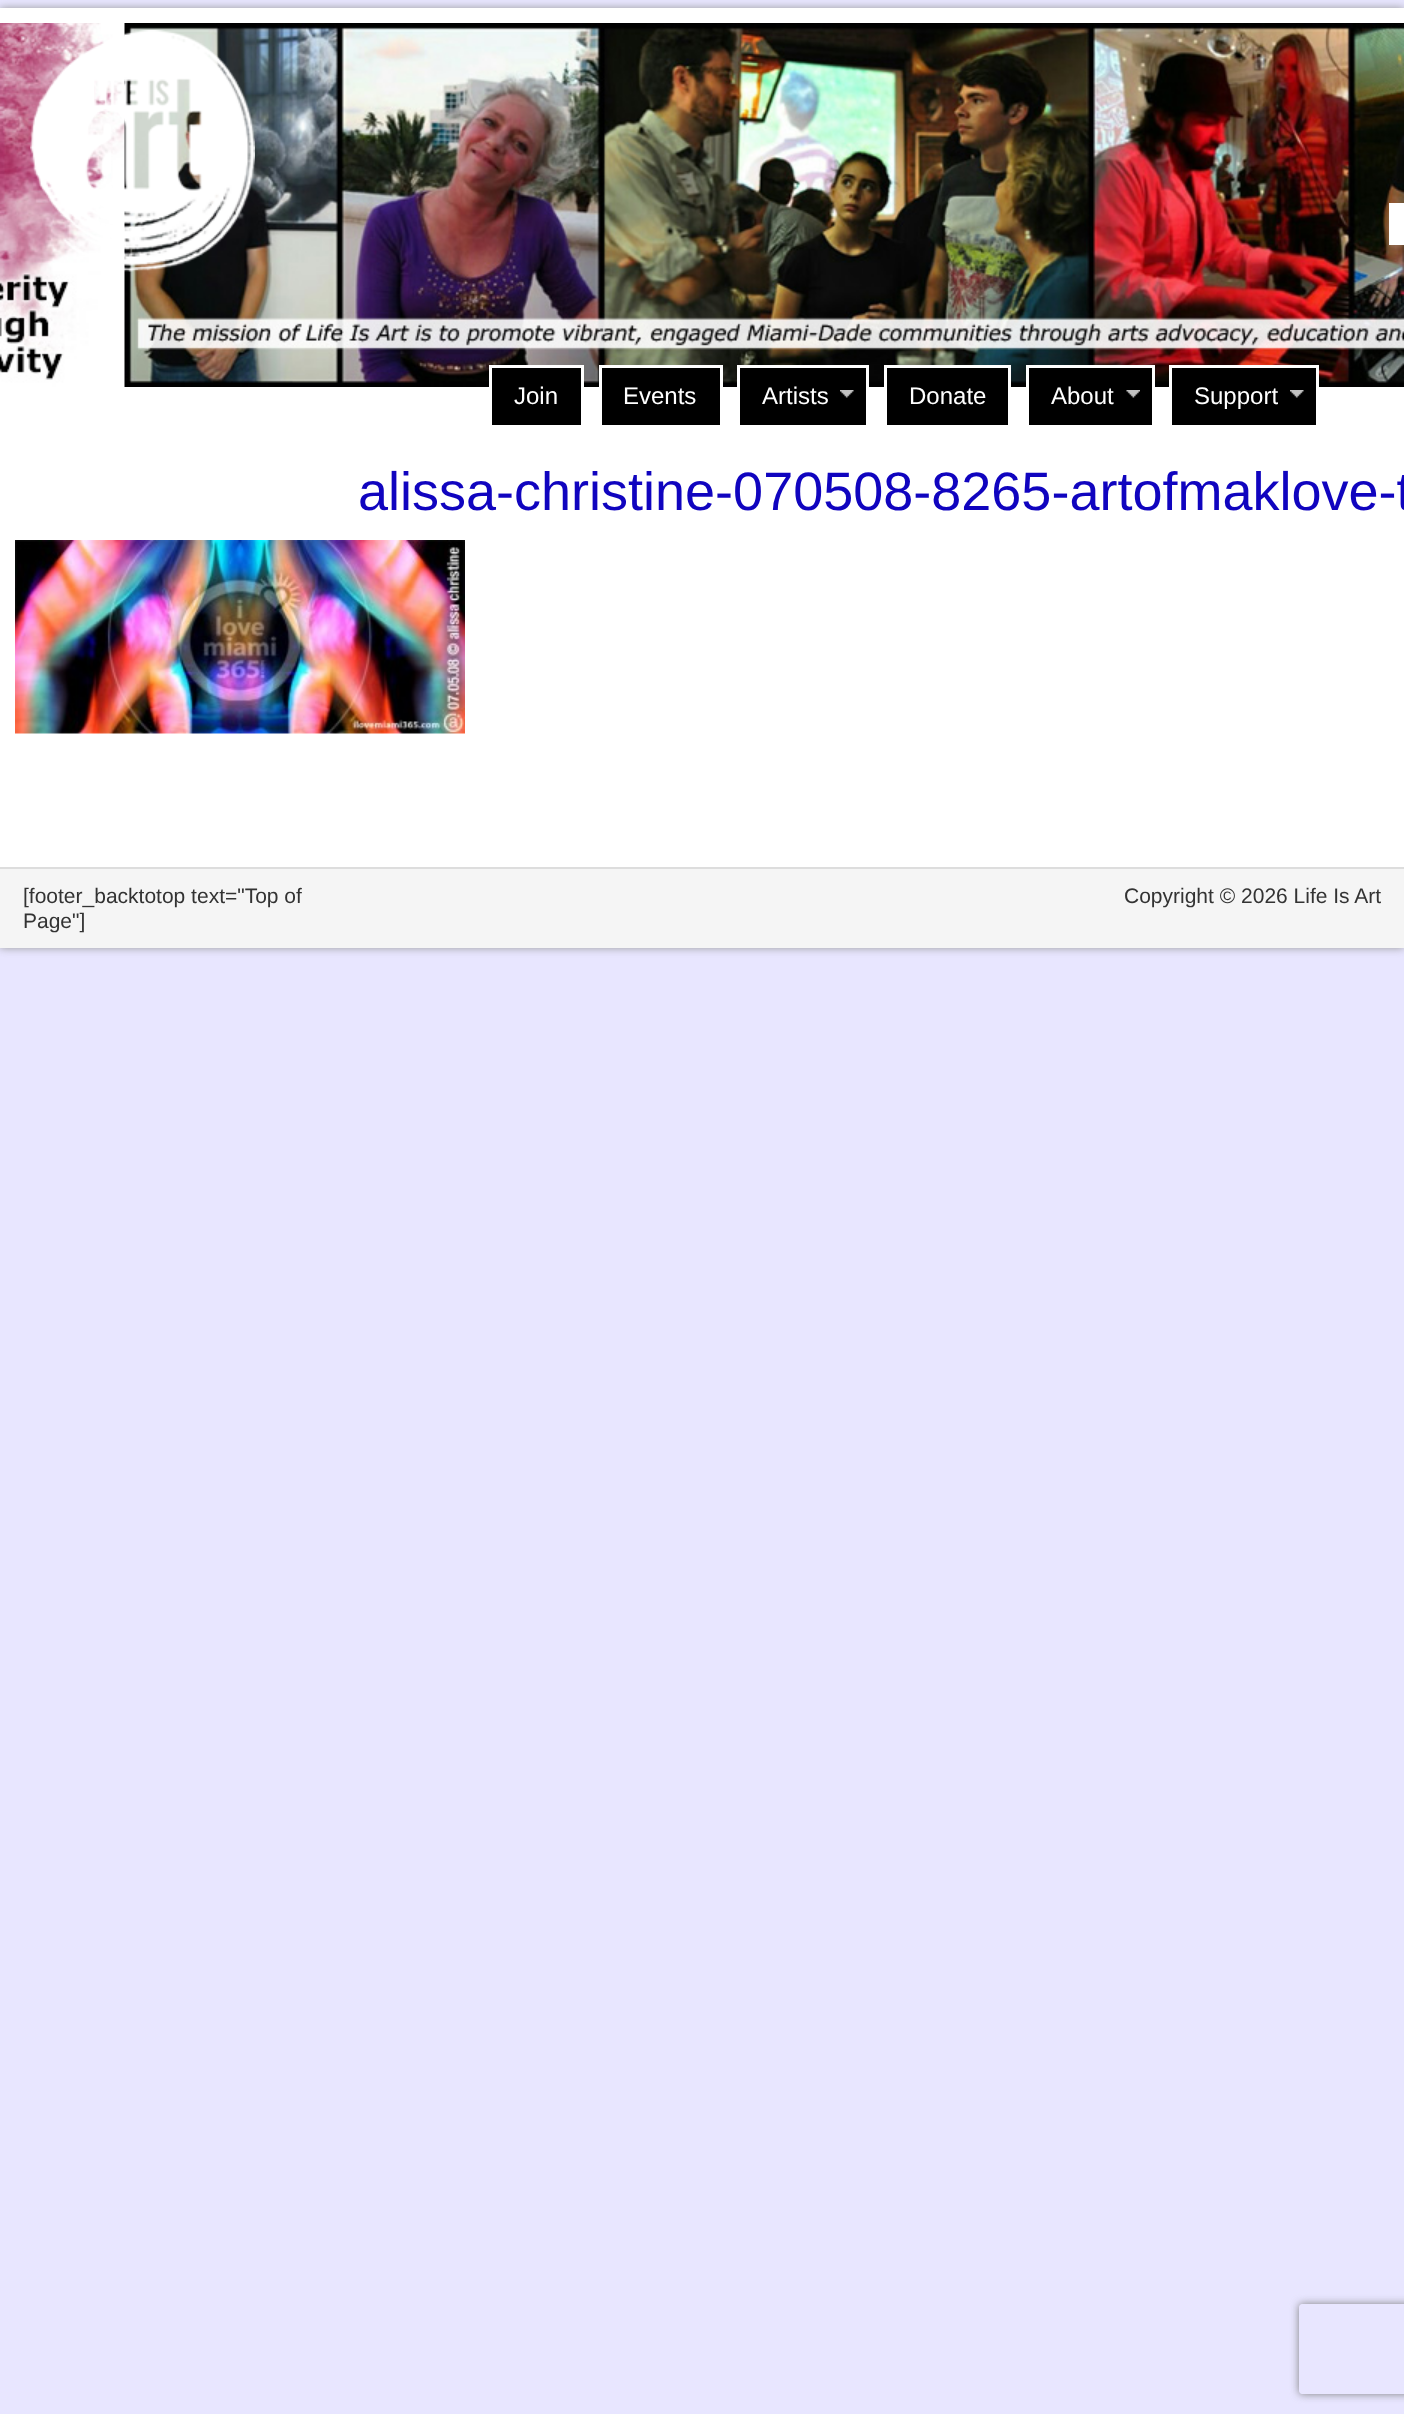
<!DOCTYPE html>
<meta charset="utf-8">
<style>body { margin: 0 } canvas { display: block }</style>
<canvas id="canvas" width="1404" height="2414"></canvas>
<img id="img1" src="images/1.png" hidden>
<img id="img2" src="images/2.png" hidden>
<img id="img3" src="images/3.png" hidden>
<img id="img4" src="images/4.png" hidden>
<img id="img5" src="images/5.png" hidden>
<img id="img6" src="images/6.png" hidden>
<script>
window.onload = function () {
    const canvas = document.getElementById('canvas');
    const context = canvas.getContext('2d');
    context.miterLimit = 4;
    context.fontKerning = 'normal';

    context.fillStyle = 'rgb(232, 230, 255)';
    context.fillRect(0, 0, 1404, 2414);
    context.fillStyle = 'rgb(153, 153, 153)';
    context.filter = 'blur(4px)';
    context.beginPath();
    context.rect(0, 8, 1404, 940);
    context.fill();
    context.filter = 'none';
    context.fillStyle = 'rgb(255, 255, 255)';
    context.fillRect(0, 387, 1404, 480);
    context.drawImage(document.getElementById('img1'), 0, 23, 1404, 364);
    context.fillRect(0, 8, 1404, 15);
    context.drawImage(document.getElementById('img2'), 30, 30, 225, 242);
    context.fillRect(1389, 203, 15, 42);
    context.fillStyle = 'rgb(0, 0, 0)';
    context.beginPath();
    context.rect(490.5, 366.5, 92, 60);
    context.fill();
    context.strokeStyle = 'rgb(255, 255, 255)';
    context.lineWidth = 3;
    context.stroke();
    context.beginPath();
    context.rect(600.5, 366.5, 121, 60);
    context.fill();
    context.stroke();
    context.beginPath();
    context.rect(738.5, 366.5, 129, 60);
    context.fill();
    context.stroke();
    context.drawImage(document.getElementById('img3'), 840, 390, 14, 8);
    context.beginPath();
    context.rect(885.5, 366.5, 124, 60);
    context.fill();
    context.stroke();
    context.beginPath();
    context.rect(1027.5, 366.5, 126, 60);
    context.fill();
    context.stroke();
    context.drawImage(document.getElementById('img4'), 1126, 390, 14, 8);
    context.beginPath();
    context.rect(1170.5, 366.5, 147, 60);
    context.fill();
    context.stroke();
    context.drawImage(document.getElementById('img5'), 1290, 390, 14, 8);
    context.drawImage(document.getElementById('img6'), 15, 540, 450, 194);
    context.fillStyle = 'rgb(245, 245, 245)';
    context.fillRect(0, 869, 1404, 79);
    context.fillStyle = 'rgb(221, 221, 221)';
    context.fillRect(0, 867, 1404, 2);
    context.save();
    context.beginPath();
    context.moveTo(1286, 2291);
    context.lineTo(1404, 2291);
    context.lineTo(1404, 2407);
    context.lineTo(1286, 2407);
    context.closePath();
    context.moveTo(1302, 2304);
    context.lineTo(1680, 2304);
    context.bezierCurveTo(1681.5, 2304, 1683, 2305.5, 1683, 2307);
    context.lineTo(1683, 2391);
    context.bezierCurveTo(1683, 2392.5, 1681.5, 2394, 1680, 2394);
    context.lineTo(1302, 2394);
    context.bezierCurveTo(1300.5, 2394, 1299, 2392.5, 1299, 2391);
    context.lineTo(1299, 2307);
    context.bezierCurveTo(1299, 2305.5, 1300.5, 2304, 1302, 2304);
    context.closePath();
    context.clip('evenodd');
    context.fillStyle = 'rgb(128, 128, 128)';
    context.filter = 'blur(4px)';
    context.beginPath();
    context.roundRect(1299, 2304, 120, 90, 3);
    context.fill();
    context.filter = 'none';
    context.restore();
    context.font = '24px Liberation Sans';
    context.fillStyle = 'rgb(255, 255, 255)';
    context.fillText('Join', 514, 404);
    context.fillText('Events', 623, 404);
    context.fillText('Artists', 762, 404);
    context.fillText('Donate', 909, 404);
    context.fillText('About', 1051, 404);
    context.fillText('Support', 1194, 404);
    context.font = '54px Liberation Sans';
    context.fillStyle = 'rgb(16, 4, 191)';
    context.fillText('alissa-christine-070508-8265-artofmaklove-t', 358, 510);
    context.font = '21px Liberation Sans';
    context.fillStyle = 'rgb(51, 51, 51)';
    context.fillText('[footer_backtotop text="Top of', 23, 903);
    context.fillText('Page"]', 23, 928);
    context.fillText('Copyright © 2026 Life Is Art', 1124, 903);
};
</script>
